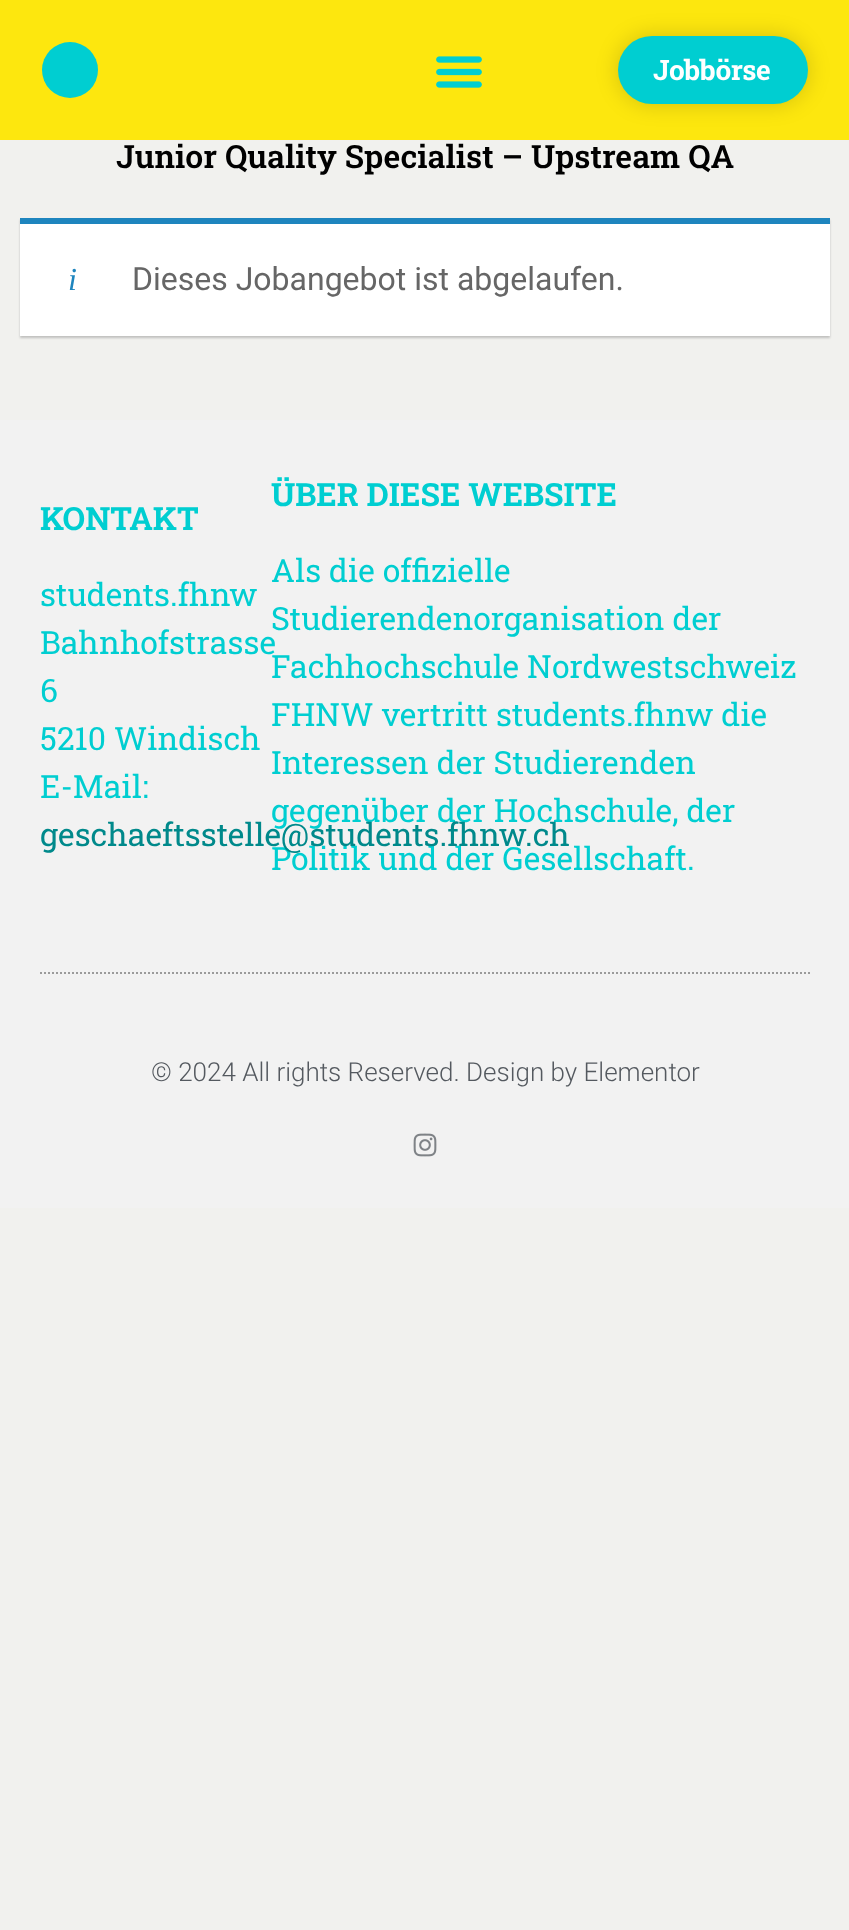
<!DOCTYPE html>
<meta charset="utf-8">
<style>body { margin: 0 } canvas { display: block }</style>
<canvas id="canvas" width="849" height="1930"></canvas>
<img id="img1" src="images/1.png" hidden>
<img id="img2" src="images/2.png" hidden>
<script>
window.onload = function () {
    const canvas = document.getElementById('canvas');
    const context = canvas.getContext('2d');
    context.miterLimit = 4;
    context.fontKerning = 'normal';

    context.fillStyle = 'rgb(241, 241, 238)';
    context.fillRect(0, 0, 849, 1930);
    context.fillStyle = 'rgb(253, 231, 14)';
    context.fillRect(0, 0, 849, 140);
    context.fillStyle = 'rgb(0, 206, 209)';
    context.beginPath();
    context.arc(70, 70, 28, 0, 2 * Math.PI);
    context.fill();
    context.drawImage(document.getElementById('img1'), 436, 56, 46, 32);
    context.fillStyle = 'rgba(0, 0, 0, 0.17)';
    context.filter = 'blur(11px)';
    context.beginPath();
    context.roundRect(618, 36, 190, 68, 34);
    context.fill();
    context.filter = 'none';
    context.fillStyle = 'rgb(0, 206, 209)';
    context.beginPath();
    context.roundRect(618, 36, 190, 68, 34);
    context.fill();
    context.fillStyle = 'rgba(0, 0, 0, 0.2)';
    context.filter = 'blur(1px)';
    context.beginPath();
    context.rect(20, 220, 810, 118);
    context.fill();
    context.filter = 'none';
    context.fillStyle = 'rgb(255, 255, 255)';
    context.fillRect(20, 224, 810, 112);
    context.fillStyle = 'rgb(30, 133, 190)';
    context.fillRect(20, 218, 810, 6);
    context.fillStyle = 'rgb(242, 242, 242)';
    context.fillRect(0, 420, 849, 788);
    context.beginPath();
    context.moveTo(40, 973);
    context.lineTo(810, 973);
    context.strokeStyle = 'rgb(155, 155, 155)';
    context.lineWidth = 2;
    context.setLineDash([2, 2]);
    context.stroke();
    context.drawImage(document.getElementById('img2'), 413, 1133, 24, 24);
    context.letterSpacing = '-0.5px';
    context.font = 'bold 28px Roboto Slab';
    context.fillStyle = 'rgb(255, 255, 255)';
    context.fillText('Jobbörse', 653, 80);
    context.letterSpacing = '0px';
    context.font = '600 32px Roboto Slab';
    context.fillStyle = 'rgb(0, 0, 0)';
    context.fillText('Junior Quality Specialist – Upstream QA', 116, 168);
    context.font = 'italic 32px Liberation Serif';
    context.fillStyle = 'rgb(30, 133, 190)';
    context.fillText('i', 68, 290);
    context.font = '32px Roboto';
    context.fillStyle = 'rgb(102, 102, 102)';
    context.fillText('Dieses Jobangebot ist abgelaufen.', 132, 290);
    context.font = 'bold 32px Roboto Slab';
    context.fillStyle = 'rgb(0, 206, 209)';
    context.fillText('ÜBER DIESE WEBSITE', 271, 506);
    context.font = '32px Roboto Slab';
    context.fillText('Als die offizielle', 271, 582);
    context.fillText('Studierendenorganisation der', 271, 630);
    context.fillText('Fachhochschule Nordwestschweiz', 271, 678);
    context.fillText('FHNW vertritt students.fhnw die', 271, 726);
    context.fillText('Interessen der Studierenden', 271, 774);
    context.fillText('gegenüber der Hochschule, der', 271, 822);
    context.fillText('Politik und der Gesellschaft.', 271, 870);
    context.font = 'bold 32px Roboto Slab';
    context.fillText('KONTAKT', 40, 530);
    context.font = '32px Roboto Slab';
    context.fillText('students.fhnw', 40, 606);
    context.fillText('Bahnhofstrasse', 40, 654);
    context.fillText('6', 40, 702);
    context.fillText('5210 Windisch', 40, 750);
    context.fillText('E-Mail:', 40, 798);
    context.fillStyle = 'rgb(0, 137, 139)';
    context.fillText('geschaeftsstelle@students.fhnw.ch', 40, 846);
    context.font = '300 26px Roboto';
    context.fillStyle = 'rgb(84, 89, 95)';
    context.fillText('© 2024 All rights Reserved. Design by Elementor', 151, 1081);
};
</script>
